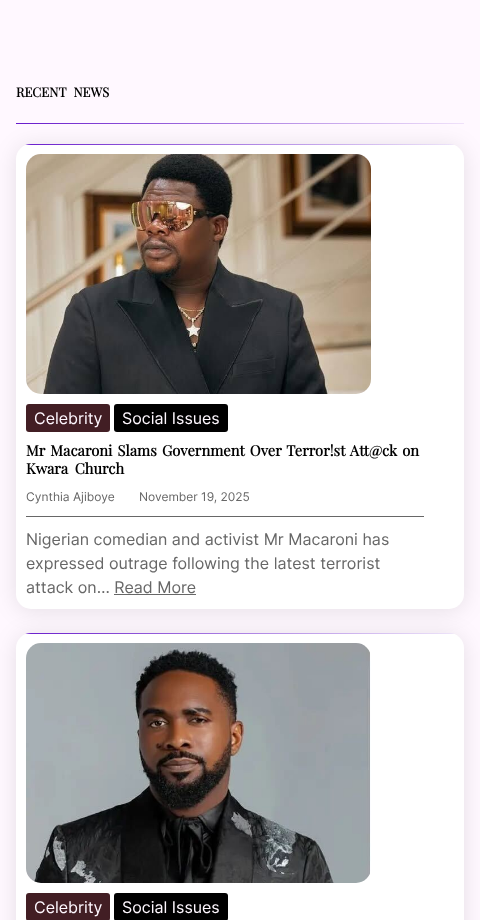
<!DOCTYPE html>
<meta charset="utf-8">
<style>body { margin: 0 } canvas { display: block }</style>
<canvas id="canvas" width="480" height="920"></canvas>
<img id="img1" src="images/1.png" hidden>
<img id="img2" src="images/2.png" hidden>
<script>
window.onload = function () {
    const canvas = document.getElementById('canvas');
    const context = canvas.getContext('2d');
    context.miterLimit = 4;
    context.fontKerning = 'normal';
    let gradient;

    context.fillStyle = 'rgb(255, 248, 255)';
    context.fillRect(0, 0, 480, 920);
    gradient = context.createLinearGradient(16, 124, 464, 123);
    gradient.addColorStop(0, 'rgb(104, 27, 204)');
    gradient.addColorStop(1, 'rgb(240, 226, 250)');
    context.fillStyle = gradient;
    context.fillRect(16, 123, 448, 1);
    context.fillStyle = 'rgba(0, 0, 0, 0.1)';
    context.filter = 'blur(11px)';
    context.beginPath();
    context.roundRect(16, 146, 448, 465, 15);
    context.fill();
    context.filter = 'none';
    context.fillStyle = 'rgb(255, 255, 255)';
    context.beginPath();
    context.roundRect(16, 144, 448, 465, 15);
    context.fill();
    context.save();
    context.beginPath();
    context.roundRect(16, 144, 448, 465, 15);
    context.clip();
    gradient = context.createLinearGradient(16, 145, 464, 145);
    gradient.addColorStop(0, 'rgb(104, 27, 204)');
    gradient.addColorStop(1, 'rgba(104, 27, 204, 0.1)');
    context.fillStyle = gradient;
    context.beginPath();
    context.roundRect(16, 144, 448, 1, 0.5);
    context.fill();
    context.restore();
    context.drawImage(document.getElementById('img1'), 26, 154, 345, 240);
    context.fillStyle = 'rgb(66, 30, 36)';
    context.beginPath();
    context.roundRect(26, 404, 84, 28, 3);
    context.fill();
    context.fillStyle = 'rgb(0, 0, 0)';
    context.beginPath();
    context.roundRect(114, 404, 114, 28, 3);
    context.fill();
    context.fillStyle = 'rgb(103, 103, 103)';
    context.fillRect(26, 516, 398, 1);
    context.fillRect(114, 594, 82, 1);
    context.fillStyle = 'rgba(0, 0, 0, 0.1)';
    context.filter = 'blur(11px)';
    context.beginPath();
    context.roundRect(16, 635, 448, 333, 15);
    context.fill();
    context.filter = 'none';
    context.fillStyle = 'rgb(255, 255, 255)';
    context.beginPath();
    context.roundRect(16, 633, 448, 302, 15);
    context.fill();
    context.save();
    context.beginPath();
    context.roundRect(16, 633, 448, 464, 15);
    context.clip();
    gradient = context.createLinearGradient(16, 634, 464, 634);
    gradient.addColorStop(0, 'rgb(104, 27, 204)');
    gradient.addColorStop(1, 'rgba(104, 27, 204, 0.1)');
    context.fillStyle = gradient;
    context.beginPath();
    context.roundRect(16, 633, 448, 1, 0.5);
    context.fill();
    context.restore();
    context.drawImage(document.getElementById('img2'), 26, 643, 345, 240);
    context.fillStyle = 'rgb(66, 30, 36)';
    context.beginPath();
    context.roundRect(26, 893, 84, 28, 3);
    context.fill();
    context.fillStyle = 'rgb(0, 0, 0)';
    context.beginPath();
    context.roundRect(114, 893, 114, 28, 3);
    context.fill();
    context.wordSpacing = '4px';
    context.font = 'bold 13px Playfair Display';
    context.fillText('RECENT NEWS', 16, 97);
    context.wordSpacing = '0px';
    context.font = '16px Inter';
    context.fillStyle = 'rgb(255, 248, 255)';
    context.fillText('Celebrity', 34, 424);
    context.fillText('Social Issues', 122, 424);
    context.wordSpacing = '1.5px';
    context.font = 'bold 14.75px Playfair Display';
    context.fillStyle = 'rgb(0, 0, 0)';
    context.fillText('Mr Macaroni Slams Government Over Terror!st Att@ck on', 26, 456);
    context.wordSpacing = '3px';
    context.fillText('Kwara Church', 26, 474);
    context.wordSpacing = '0px';
    context.font = '12px Inter';
    context.fillStyle = 'rgb(103, 103, 103)';
    context.fillText('Cynthia Ajiboye', 26, 501);
    context.fillText('November 19, 2025', 139, 501);
    context.font = '16px Inter';
    context.fillText('Nigerian comedian and activist Mr Macaroni has', 26, 545);
    context.fillText('expressed outrage following the latest terrorist', 26, 569);
    context.fillText('attack on… Read More', 26, 593);
    context.fillStyle = 'rgb(255, 248, 255)';
    context.fillText('Celebrity', 34, 913);
    context.fillText('Social Issues', 122, 913);
};
</script>
